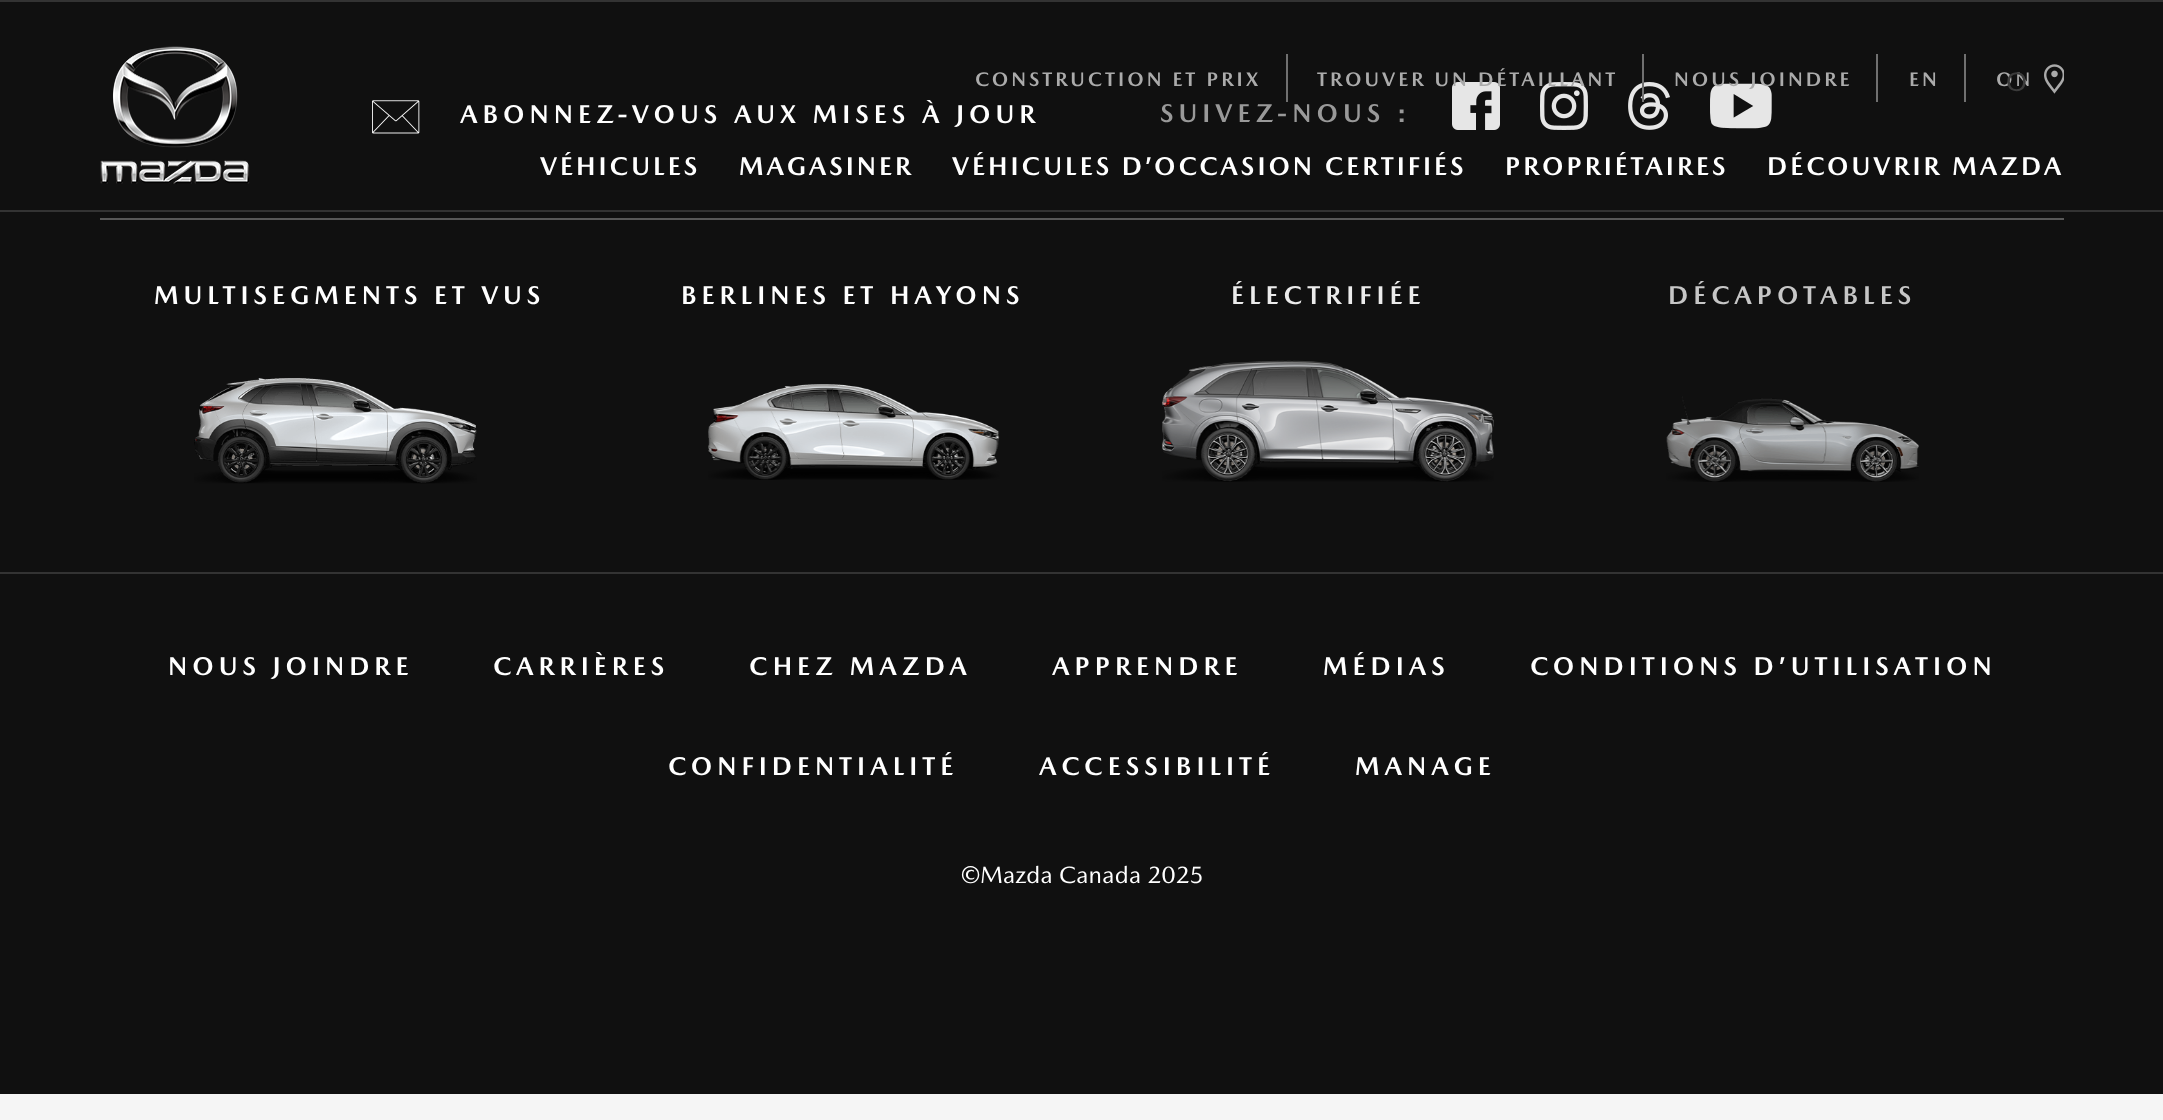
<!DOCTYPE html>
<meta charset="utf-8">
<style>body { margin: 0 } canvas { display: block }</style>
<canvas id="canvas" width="2163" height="1120"></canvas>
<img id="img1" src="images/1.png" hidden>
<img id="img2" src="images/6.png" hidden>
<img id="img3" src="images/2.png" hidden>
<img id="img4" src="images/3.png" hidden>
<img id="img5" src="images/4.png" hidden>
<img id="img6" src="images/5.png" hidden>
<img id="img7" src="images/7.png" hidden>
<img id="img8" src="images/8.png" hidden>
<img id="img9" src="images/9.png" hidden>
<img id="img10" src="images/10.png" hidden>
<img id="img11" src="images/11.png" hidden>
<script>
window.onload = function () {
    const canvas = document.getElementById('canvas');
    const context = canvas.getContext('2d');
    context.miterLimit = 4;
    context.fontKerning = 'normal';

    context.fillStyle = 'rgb(245, 245, 245)';
    context.fillRect(0, 0, 2163, 1120);
    context.fillStyle = 'rgb(16, 16, 16)';
    context.fillRect(0, 2, 2163, 1092);
    context.drawImage(document.getElementById('img1'), 100, 46, 150, 138);
    context.fillStyle = 'rgb(112, 112, 112)';
    context.fillRect(1286, 54, 2, 48);
    context.drawImage(document.getElementById('img2'), 1628, 82, 42, 48);
    context.fillRect(1642, 54, 2, 48);
    context.fillRect(1876, 54, 2, 48);
    context.fillRect(1964, 54, 2, 48);
    context.drawImage(document.getElementById('img3'), 2044, 64, 20, 30);
    context.fillStyle = 'rgb(88, 88, 88)';
    context.fillRect(100, 218, 1964, 2);
    context.fillStyle = 'rgb(51, 51, 51)';
    context.fillRect(0, 0, 2163, 2);
    context.fillRect(0, 210, 2163, 2);
    context.drawImage(document.getElementById('img4'), 372, 100, 48, 34);
    context.drawImage(document.getElementById('img5'), 1452, 82, 48, 48);
    context.drawImage(document.getElementById('img6'), 1540, 82, 48, 48);
    context.drawImage(document.getElementById('img7'), 1710, 83, 62, 46);
    context.fillRect(0, 572, 2163, 2);
    context.drawImage(document.getElementById('img8'), 194, 378, 283, 106);
    context.drawImage(document.getElementById('img9'), 708, 384, 292, 96);
    context.drawImage(document.getElementById('img10'), 1162, 360, 332, 122);
    context.drawImage(document.getElementById('img11'), 1666, 396, 253, 86);
    context.letterSpacing = '3px';
    context.font = 'bold 20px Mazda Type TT';
    context.fillStyle = 'rgb(171, 171, 171)';
    context.fillText('CONSTRUCTION ET PRIX', 975, 86);
    context.fillText('TROUVER UN DÉTAILLANT', 1317, 86);
    context.fillText('NOUS JOINDRE', 1674, 86);
    context.fillText('EN', 1909, 86);
    context.fillText('ON', 1996, 86);
    context.letterSpacing = '0px';
    context.font = '27px Liberation Sans';
    context.fillStyle = 'rgb(59, 59, 59)';
    context.fillText('O', 2006, 91);
    context.letterSpacing = '3px';
    context.font = 'bold 26px Mazda Type TT';
    context.fillStyle = 'rgb(255, 255, 255)';
    context.fillText('VÉHICULES', 540, 175);
    context.fillText('MAGASINER', 739, 175);
    context.fillText('VÉHICULES D’OCCASION CERTIFIÉS', 952, 175);
    context.fillText('PROPRIÉTAIRES', 1505, 175);
    context.fillText('DÉCOUVRIR MAZDA', 1767, 175);
    context.letterSpacing = '5px';
    context.fillText('ABONNEZ-VOUS AUX MISES À JOUR', 460, 123);
    context.fillStyle = 'rgb(153, 153, 153)';
    context.fillText('SUIVEZ-NOUS :', 1160, 122);
    context.fillStyle = 'rgb(255, 255, 255)';
    context.fillText('MULTISEGMENTS ET VUS', 154, 304);
    context.fillText('BERLINES ET HAYONS', 681, 304);
    context.fillStyle = 'rgb(235, 235, 235)';
    context.fillText('ÉLECTRIFIÉE', 1231, 304);
    context.fillStyle = 'rgb(198, 198, 198)';
    context.fillText('DÉCAPOTABLES', 1668, 304);
    context.fillStyle = 'rgb(255, 255, 255)';
    context.fillText('NOUS JOINDRE', 168, 675);
    context.fillText('CARRIÈRES', 493, 675);
    context.fillText('CHEZ MAZDA', 749, 675);
    context.fillText('APPRENDRE', 1052, 675);
    context.fillText('MÉDIAS', 1323, 675);
    context.fillText('CONDITIONS D’UTILISATION', 1530, 675);
    context.fillText('CONFIDENTIALITÉ', 668, 775);
    context.fillText('ACCESSIBILITÉ', 1039, 775);
    context.fillText('MANAGE', 1355, 775);
    context.letterSpacing = '0px';
    context.font = '24px Mazda Type TT';
    context.fillText('©Mazda Canada 2025', 961, 883);
};
</script>
